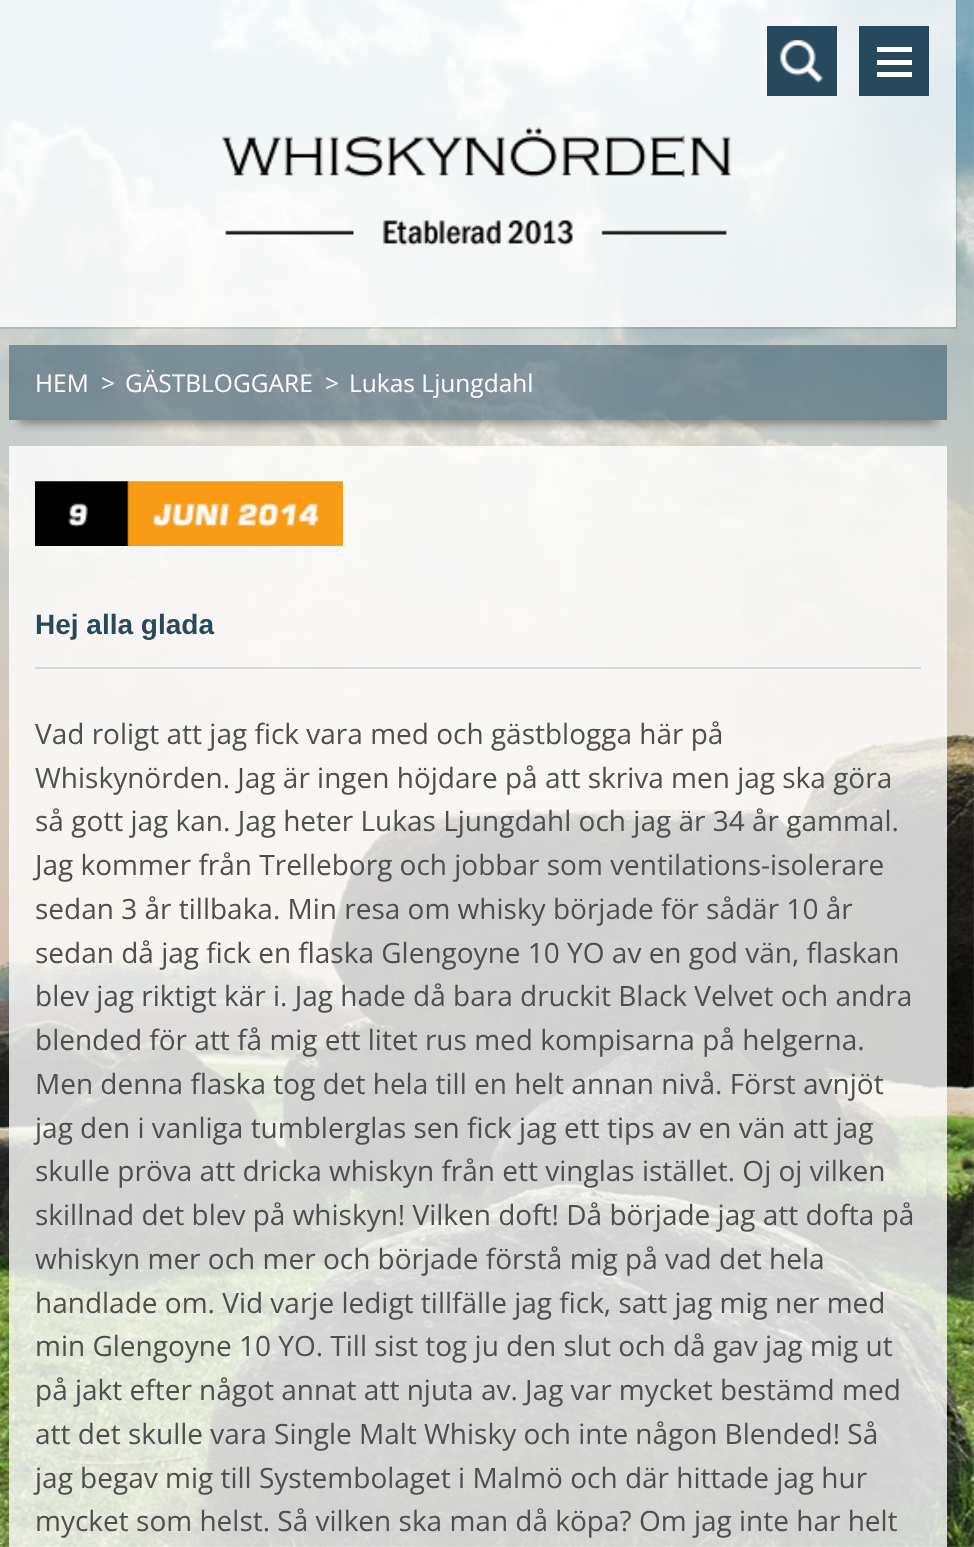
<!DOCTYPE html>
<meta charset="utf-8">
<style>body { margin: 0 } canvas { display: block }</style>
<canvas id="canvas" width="974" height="1547"></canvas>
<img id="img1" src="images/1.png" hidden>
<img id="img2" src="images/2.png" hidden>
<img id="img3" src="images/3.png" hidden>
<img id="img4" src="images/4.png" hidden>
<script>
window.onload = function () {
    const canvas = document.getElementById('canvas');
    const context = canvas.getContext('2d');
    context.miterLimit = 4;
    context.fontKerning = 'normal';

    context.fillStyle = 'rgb(255, 255, 255)';
    context.fillRect(0, 0, 974, 1547);
    context.drawImage(document.getElementById('img1'), 0, 0, 974, 1547);
    context.strokeStyle = 'rgba(0, 0, 0, 0.1)';
    context.lineWidth = 2;
    context.strokeRect(-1, -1, 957, 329);
    context.fillStyle = 'rgba(255, 255, 255, 0.8)';
    context.fillRect(0, 0, 956, 284);
    context.drawImage(document.getElementById('img2'), 221, 127, 511, 119);
    context.fillStyle = 'rgb(38, 73, 94)';
    context.fillRect(767, 26, 70, 70);
    context.drawImage(document.getElementById('img3'), 780, 40, 43, 43);
    context.fillRect(859, 26, 70, 70);
    context.fillStyle = 'rgb(255, 255, 255)';
    context.fillRect(877, 47, 35, 5);
    context.fillRect(877, 60, 35, 5);
    context.fillRect(877, 72, 35, 5);
    context.fillStyle = 'rgba(255, 255, 255, 0.8)';
    context.fillRect(0, 284, 956, 43);
    context.save();
    context.beginPath();
    context.rect(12, 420, 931, 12);
    context.clip();
    context.fillStyle = 'rgba(0, 0, 0, 0.35)';
    context.filter = 'blur(5px)';
    context.beginPath();
    context.rect(19, 369, 917, 55);
    context.fill();
    context.filter = 'none';
    context.restore();
    context.fillStyle = 'rgba(38, 73, 94, 0.5)';
    context.fillRect(9, 345, 938, 75);
    context.fillStyle = 'rgba(255, 255, 255, 0.8)';
    context.fillRect(9, 446, 938, 1101);
    context.drawImage(document.getElementById('img4'), 35, 481, 308, 65);
    context.fillStyle = 'rgb(215, 215, 215)';
    context.fillRect(35, 667, 886, 2);
    context.font = '24.5px Open Sans';
    context.fillStyle = 'rgb(255, 255, 255)';
    context.fillText('HEM', 35, 392);
    context.fillText('>', 101, 392);
    context.fillText('GÄSTBLOGGARE', 125, 392);
    context.fillText('>', 325, 392);
    context.fillText('Lukas Ljungdahl', 349, 392);
    context.font = 'bold 28px Liberation Sans';
    context.fillStyle = 'rgb(38, 73, 94)';
    context.fillText('Hej alla glada', 35, 634);
    context.font = '28px Open Sans';
    context.fillStyle = 'rgb(78, 78, 78)';
    context.fillText('Vad roligt att jag fick vara med och gästblogga här på', 35, 744);
    context.fillText('Whiskynörden. Jag är ingen höjdare på att skriva men jag ska göra', 35, 788);
    context.fillText('så gott jag kan. Jag heter Lukas Ljungdahl och jag är 34 år gammal.', 35, 831);
    context.fillText('Jag kommer från Trelleborg och jobbar som ventilations-isolerare', 35, 875);
    context.fillText('sedan 3 år tillbaka. Min resa om whisky började för sådär 10 år', 35, 919);
    context.fillText('sedan då jag fick en flaska Glengoyne 10 YO av en god vän, flaskan', 35, 963);
    context.fillText('blev jag riktigt kär i. Jag hade då bara druckit Black Velvet och andra', 35, 1006);
    context.fillText('blended för att få mig ett litet rus med kompisarna på helgerna.', 35, 1050);
    context.fillText('Men denna flaska tog det hela till en helt annan nivå. Först avnjöt', 35, 1094);
    context.fillText('jag den i vanliga tumblerglas sen fick jag ett tips av en vän att jag', 35, 1138);
    context.fillText('skulle pröva att dricka whiskyn från ett vinglas istället. Oj oj vilken', 35, 1181);
    context.fillText('skillnad det blev på whiskyn! Vilken doft! Då började jag att dofta på', 35, 1225);
    context.fillText('whiskyn mer och mer och började förstå mig på vad det hela', 35, 1269);
    context.fillText('handlade om. Vid varje ledigt tillfälle jag fick, satt jag mig ner med', 35, 1313);
    context.fillText('min Glengoyne 10 YO. Till sist tog ju den slut och då gav jag mig ut', 35, 1356);
    context.fillText('på jakt efter något annat att njuta av. Jag var mycket bestämd med', 35, 1400);
    context.fillText('att det skulle vara Single Malt Whisky och inte någon Blended! Så', 35, 1444);
    context.fillText('jag begav mig till Systembolaget i Malmö och där hittade jag hur', 35, 1488);
    context.fillText('mycket som helst. Så vilken ska man då köpa? Om jag inte har helt', 35, 1531);
};
</script>
